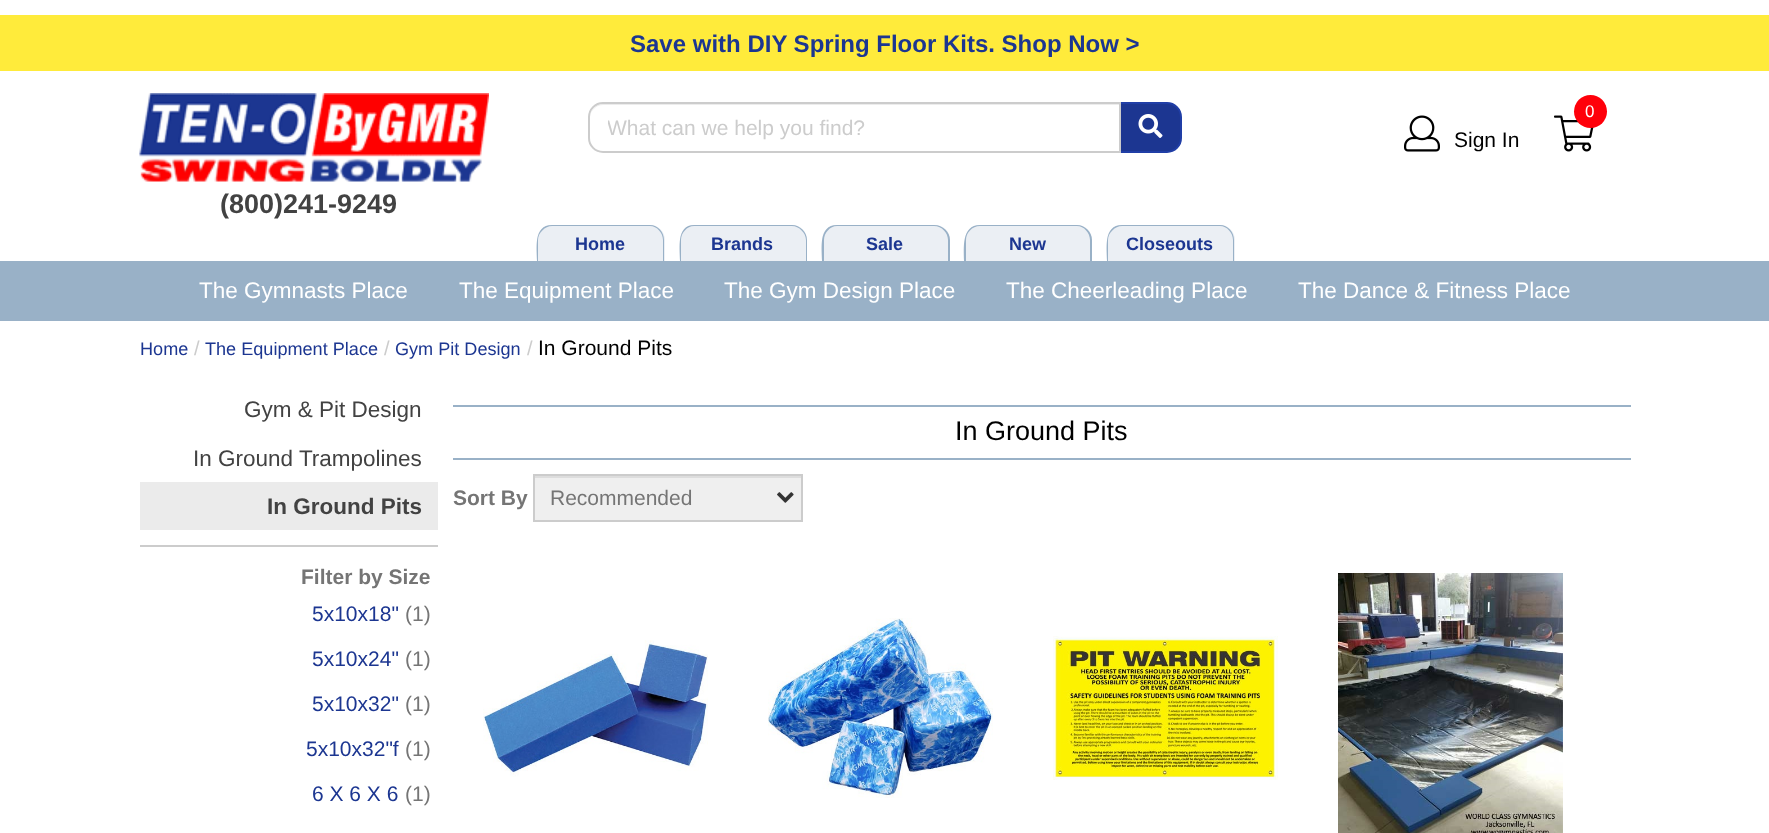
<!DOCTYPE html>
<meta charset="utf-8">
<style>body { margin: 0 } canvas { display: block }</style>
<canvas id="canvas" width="1769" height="833"></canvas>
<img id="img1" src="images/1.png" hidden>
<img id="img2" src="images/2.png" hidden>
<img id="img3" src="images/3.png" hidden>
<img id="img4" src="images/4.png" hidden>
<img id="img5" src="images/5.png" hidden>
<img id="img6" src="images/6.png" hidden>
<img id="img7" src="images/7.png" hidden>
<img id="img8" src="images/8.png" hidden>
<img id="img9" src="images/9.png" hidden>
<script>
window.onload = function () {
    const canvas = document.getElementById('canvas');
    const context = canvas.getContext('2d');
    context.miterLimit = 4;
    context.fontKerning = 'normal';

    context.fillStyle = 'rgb(255, 255, 255)';
    context.fillRect(0, 0, 1769, 833);
    context.fillStyle = 'rgb(255, 235, 59)';
    context.fillRect(0, 15, 1769, 56);
    context.fillStyle = 'rgb(28, 54, 145)';
    context.beginPath();
    context.roundRect(1120, 103, 61, 49, [0, 14, 14, 0]);
    context.fill();
    context.strokeStyle = 'rgb(32, 62, 166)';
    context.lineWidth = 2;
    context.stroke();
    context.fillStyle = 'rgb(255, 255, 255)';
    context.beginPath();
    context.roundRect(588, 102, 533, 51, [15, 0, 0, 15]);
    context.fill();
    context.fillStyle = 'rgb(236, 236, 236)';
    context.beginPath();
    context.moveTo(603, 105);
    context.lineTo(1119, 105);
    context.lineTo(1119, 104);
    context.lineTo(604, 104);
    context.bezierCurveTo(596, 104, 590, 110, 590, 118);
    context.bezierCurveTo(590, 111, 596, 105, 603, 105);
    context.closePath();
    context.fill();
    context.beginPath();
    context.roundRect(589, 103, 531, 49, [14, 0, 0, 14]);
    context.strokeStyle = 'rgb(204, 204, 204)';
    context.stroke();
    context.drawImage(document.getElementById('img1'), 1138, 114, 25, 24);
    context.drawImage(document.getElementById('img2'), 1554, 115, 40, 37);
    context.fillStyle = 'rgb(255, 0, 10)';
    context.beginPath();
    context.arc(1590.5, 111.5, 16.5, 0, 2 * Math.PI);
    context.fill();
    context.drawImage(document.getElementById('img3'), 1404, 115, 36, 37);
    context.drawImage(document.getElementById('img4'), 139, 93, 350, 89);
    context.fillStyle = 'rgb(235, 239, 244)';
    context.beginPath();
    context.roundRect(537, 225, 128, 36, [15, 15, 0, 0]);
    context.fill();
    context.fillStyle = 'rgb(153, 177, 199)';
    context.beginPath();
    context.moveTo(552, 225);
    context.lineTo(650, 225);
    context.bezierCurveTo(658, 225, 664, 232, 664, 240);
    context.lineTo(664, 261);
    context.lineTo(537, 261);
    context.bezierCurveTo(537, 249, 533, 225, 552, 225);
    context.closePath();
    context.moveTo(552, 226);
    context.lineTo(650, 226);
    context.bezierCurveTo(657, 226, 663, 233, 663, 240);
    context.lineTo(663, 261);
    context.lineTo(538, 261);
    context.lineTo(538, 240);
    context.bezierCurveTo(538, 233, 545, 226, 552, 226);
    context.closePath();
    context.fill('evenodd');
    context.fillStyle = 'rgb(235, 239, 244)';
    context.beginPath();
    context.roundRect(680, 225, 127, 36, [15, 15, 0, 0]);
    context.fill();
    context.fillStyle = 'rgb(153, 177, 199)';
    context.beginPath();
    context.moveTo(694, 225);
    context.lineTo(792, 225);
    context.bezierCurveTo(800, 225, 807, 232, 807, 240);
    context.lineTo(807, 261);
    context.lineTo(680, 261);
    context.bezierCurveTo(680, 249, 676, 225, 694, 225);
    context.closePath();
    context.moveTo(694, 226);
    context.lineTo(792, 226);
    context.bezierCurveTo(799, 226, 806, 233, 806, 240);
    context.lineTo(806, 261);
    context.lineTo(681, 261);
    context.lineTo(681, 240);
    context.bezierCurveTo(681, 233, 687, 226, 694, 226);
    context.closePath();
    context.fill('evenodd');
    context.fillStyle = 'rgb(235, 239, 244)';
    context.beginPath();
    context.roundRect(822, 225, 128, 36, [15, 15, 0, 0]);
    context.fill();
    context.fillStyle = 'rgb(153, 177, 199)';
    context.beginPath();
    context.moveTo(837, 225);
    context.lineTo(934, 225);
    context.bezierCurveTo(943, 225, 950, 232, 950, 240);
    context.lineTo(950, 261);
    context.lineTo(822, 261);
    context.bezierCurveTo(822, 249, 818, 225, 837, 225);
    context.closePath();
    context.moveTo(837, 226);
    context.lineTo(934, 226);
    context.bezierCurveTo(942, 226, 948, 233, 948, 240);
    context.lineTo(948, 261);
    context.lineTo(824, 261);
    context.lineTo(824, 240);
    context.bezierCurveTo(824, 233, 830, 226, 837, 226);
    context.closePath();
    context.fill('evenodd');
    context.fillStyle = 'rgb(235, 239, 244)';
    context.beginPath();
    context.roundRect(965, 225, 127, 36, [15, 15, 0, 0]);
    context.fill();
    context.fillStyle = 'rgb(153, 177, 199)';
    context.beginPath();
    context.moveTo(980, 225);
    context.lineTo(1077, 225);
    context.bezierCurveTo(1085, 225, 1092, 232, 1092, 240);
    context.lineTo(1092, 261);
    context.lineTo(964, 261);
    context.bezierCurveTo(964, 249, 961, 225, 980, 225);
    context.closePath();
    context.moveTo(980, 226);
    context.lineTo(1077, 226);
    context.bezierCurveTo(1084, 226, 1090, 233, 1090, 240);
    context.lineTo(1090, 261);
    context.lineTo(966, 261);
    context.lineTo(966, 240);
    context.bezierCurveTo(966, 233, 972, 226, 980, 226);
    context.closePath();
    context.fill('evenodd');
    context.fillStyle = 'rgb(235, 239, 244)';
    context.beginPath();
    context.roundRect(1107, 225, 128, 36, [15, 15, 0, 0]);
    context.fill();
    context.fillStyle = 'rgb(153, 177, 199)';
    context.beginPath();
    context.moveTo(1122, 225);
    context.lineTo(1220, 225);
    context.bezierCurveTo(1228, 225, 1234, 232, 1234, 240);
    context.lineTo(1234, 261);
    context.lineTo(1107, 261);
    context.bezierCurveTo(1107, 249, 1103, 225, 1122, 225);
    context.closePath();
    context.moveTo(1122, 226);
    context.lineTo(1220, 226);
    context.bezierCurveTo(1227, 226, 1233, 233, 1233, 240);
    context.lineTo(1233, 261);
    context.lineTo(1108, 261);
    context.lineTo(1108, 240);
    context.bezierCurveTo(1108, 233, 1115, 226, 1122, 226);
    context.closePath();
    context.fill('evenodd');
    context.fillRect(0, 261, 1769, 60);
    context.fillStyle = 'rgb(235, 235, 235)';
    context.fillRect(140, 482, 298, 48);
    context.fillStyle = 'rgb(204, 204, 204)';
    context.fillRect(140, 545, 298, 2);
    context.fillStyle = 'rgb(153, 177, 199)';
    context.fillRect(453, 405, 1178, 2);
    context.fillRect(453, 458, 1178, 2);
    context.fillStyle = 'rgb(239, 239, 239)';
    context.fillRect(535, 478, 266, 42);
    context.drawImage(document.getElementById('img5'), 777, 492, 17, 11);
    context.fillStyle = 'rgb(221, 221, 221)';
    context.fillRect(534, 476, 267, 2);
    context.strokeRect(534, 475, 268, 46);
    context.drawImage(document.getElementById('img6'), 483, 640, 225, 137);
    context.drawImage(document.getElementById('img7'), 768, 618, 225, 180);
    context.drawImage(document.getElementById('img8'), 1053, 636, 225, 144);
    context.drawImage(document.getElementById('img9'), 1338, 573, 225, 260);
    context.font = 'bold 24px Liberation Sans';
    context.fillStyle = 'rgb(28, 54, 145)';
    context.fillText('Save with DIY Spring Floor Kits. Shop Now >', 630, 52);
    context.save();
    context.beginPath();
    context.rect(608, 116, 487, 24);
    context.clip();
    context.font = '21px Liberation Sans';
    context.fillStyle = 'rgb(204, 204, 204)';
    context.fillText('What can we help you find?', 607, 135);
    context.restore();
    context.font = '17px Liberation Sans';
    context.fillStyle = 'rgb(255, 255, 255)';
    context.fillText('0', 1585, 117);
    context.font = '21px Liberation Sans';
    context.fillStyle = 'rgb(0, 0, 0)';
    context.fillText('Sign In', 1454, 147);
    context.font = 'bold 27px Liberation Sans';
    context.fillStyle = 'rgb(66, 66, 66)';
    context.fillText('(800)241-9249', 220, 213);
    context.font = 'bold 18px Liberation Sans';
    context.fillStyle = 'rgb(28, 54, 145)';
    context.fillText('Home', 575, 250);
    context.fillText('Brands', 711, 250);
    context.fillText('Sale', 866, 250);
    context.fillText('New', 1009, 250);
    context.fillText('Closeouts', 1126, 250);
    context.font = '22.5px Liberation Sans';
    context.fillStyle = 'rgb(255, 255, 255)';
    context.fillText('The Gymnasts Place', 199, 298);
    context.fillText('The Equipment Place', 459, 298);
    context.fillText('The Gym Design Place', 724, 298);
    context.fillText('The Cheerleading Place', 1006, 298);
    context.fillText('The Dance & Fitness Place', 1298, 298);
    context.font = '18.1px Liberation Sans';
    context.fillStyle = 'rgb(28, 54, 145)';
    context.fillText('Home', 140, 355);
    context.font = '20px Liberation Sans';
    context.fillStyle = 'rgb(204, 204, 204)';
    context.fillText('/', 194, 355);
    context.font = '18.1px Liberation Sans';
    context.fillStyle = 'rgb(28, 54, 145)';
    context.fillText('The Equipment Place', 205, 355);
    context.font = '20px Liberation Sans';
    context.fillStyle = 'rgb(204, 204, 204)';
    context.fillText('/', 384, 355);
    context.font = '18.1px Liberation Sans';
    context.fillStyle = 'rgb(28, 54, 145)';
    context.fillText('Gym Pit Design', 395, 355);
    context.font = '20px Liberation Sans';
    context.fillStyle = 'rgb(204, 204, 204)';
    context.fillText('/', 527, 355);
    context.font = '21px Liberation Sans';
    context.fillStyle = 'rgb(0, 0, 0)';
    context.fillText('In Ground Pits', 538, 355);
    context.font = '22.5px Liberation Sans';
    context.fillStyle = 'rgb(66, 66, 66)';
    context.fillText('Gym & Pit Design', 244, 417);
    context.fillText('In Ground Trampolines', 193, 466);
    context.font = 'bold 22.5px Liberation Sans';
    context.fillText('In Ground Pits', 267, 514);
    context.font = 'bold 21px Liberation Sans';
    context.fillStyle = 'rgb(117, 117, 117)';
    context.fillText('Filter by Size', 301, 584);
    context.font = '21px Liberation Sans';
    context.fillStyle = 'rgb(28, 54, 145)';
    context.fillText('5x10x18"', 312, 621);
    context.fillStyle = 'rgb(117, 117, 117)';
    context.fillText('(1)', 405, 621);
    context.fillStyle = 'rgb(28, 54, 145)';
    context.fillText('5x10x24"', 312, 666);
    context.fillStyle = 'rgb(117, 117, 117)';
    context.fillText('(1)', 405, 666);
    context.fillStyle = 'rgb(28, 54, 145)';
    context.fillText('5x10x32"', 312, 711);
    context.fillStyle = 'rgb(117, 117, 117)';
    context.fillText('(1)', 405, 711);
    context.fillStyle = 'rgb(28, 54, 145)';
    context.fillText('5x10x32"f', 306, 756);
    context.fillStyle = 'rgb(117, 117, 117)';
    context.fillText('(1)', 405, 756);
    context.fillStyle = 'rgb(28, 54, 145)';
    context.fillText('6 X 6 X 6', 312, 801);
    context.fillStyle = 'rgb(117, 117, 117)';
    context.fillText('(1)', 405, 801);
    context.font = '27px Liberation Sans';
    context.fillStyle = 'rgb(0, 0, 0)';
    context.fillText('In Ground Pits', 955, 440);
    context.font = 'bold 21px Liberation Sans';
    context.fillStyle = 'rgb(117, 117, 117)';
    context.fillText('Sort By', 453, 505);
    context.font = '21px Liberation Sans';
    context.fillText('Recommended', 550, 505);
};
</script>
